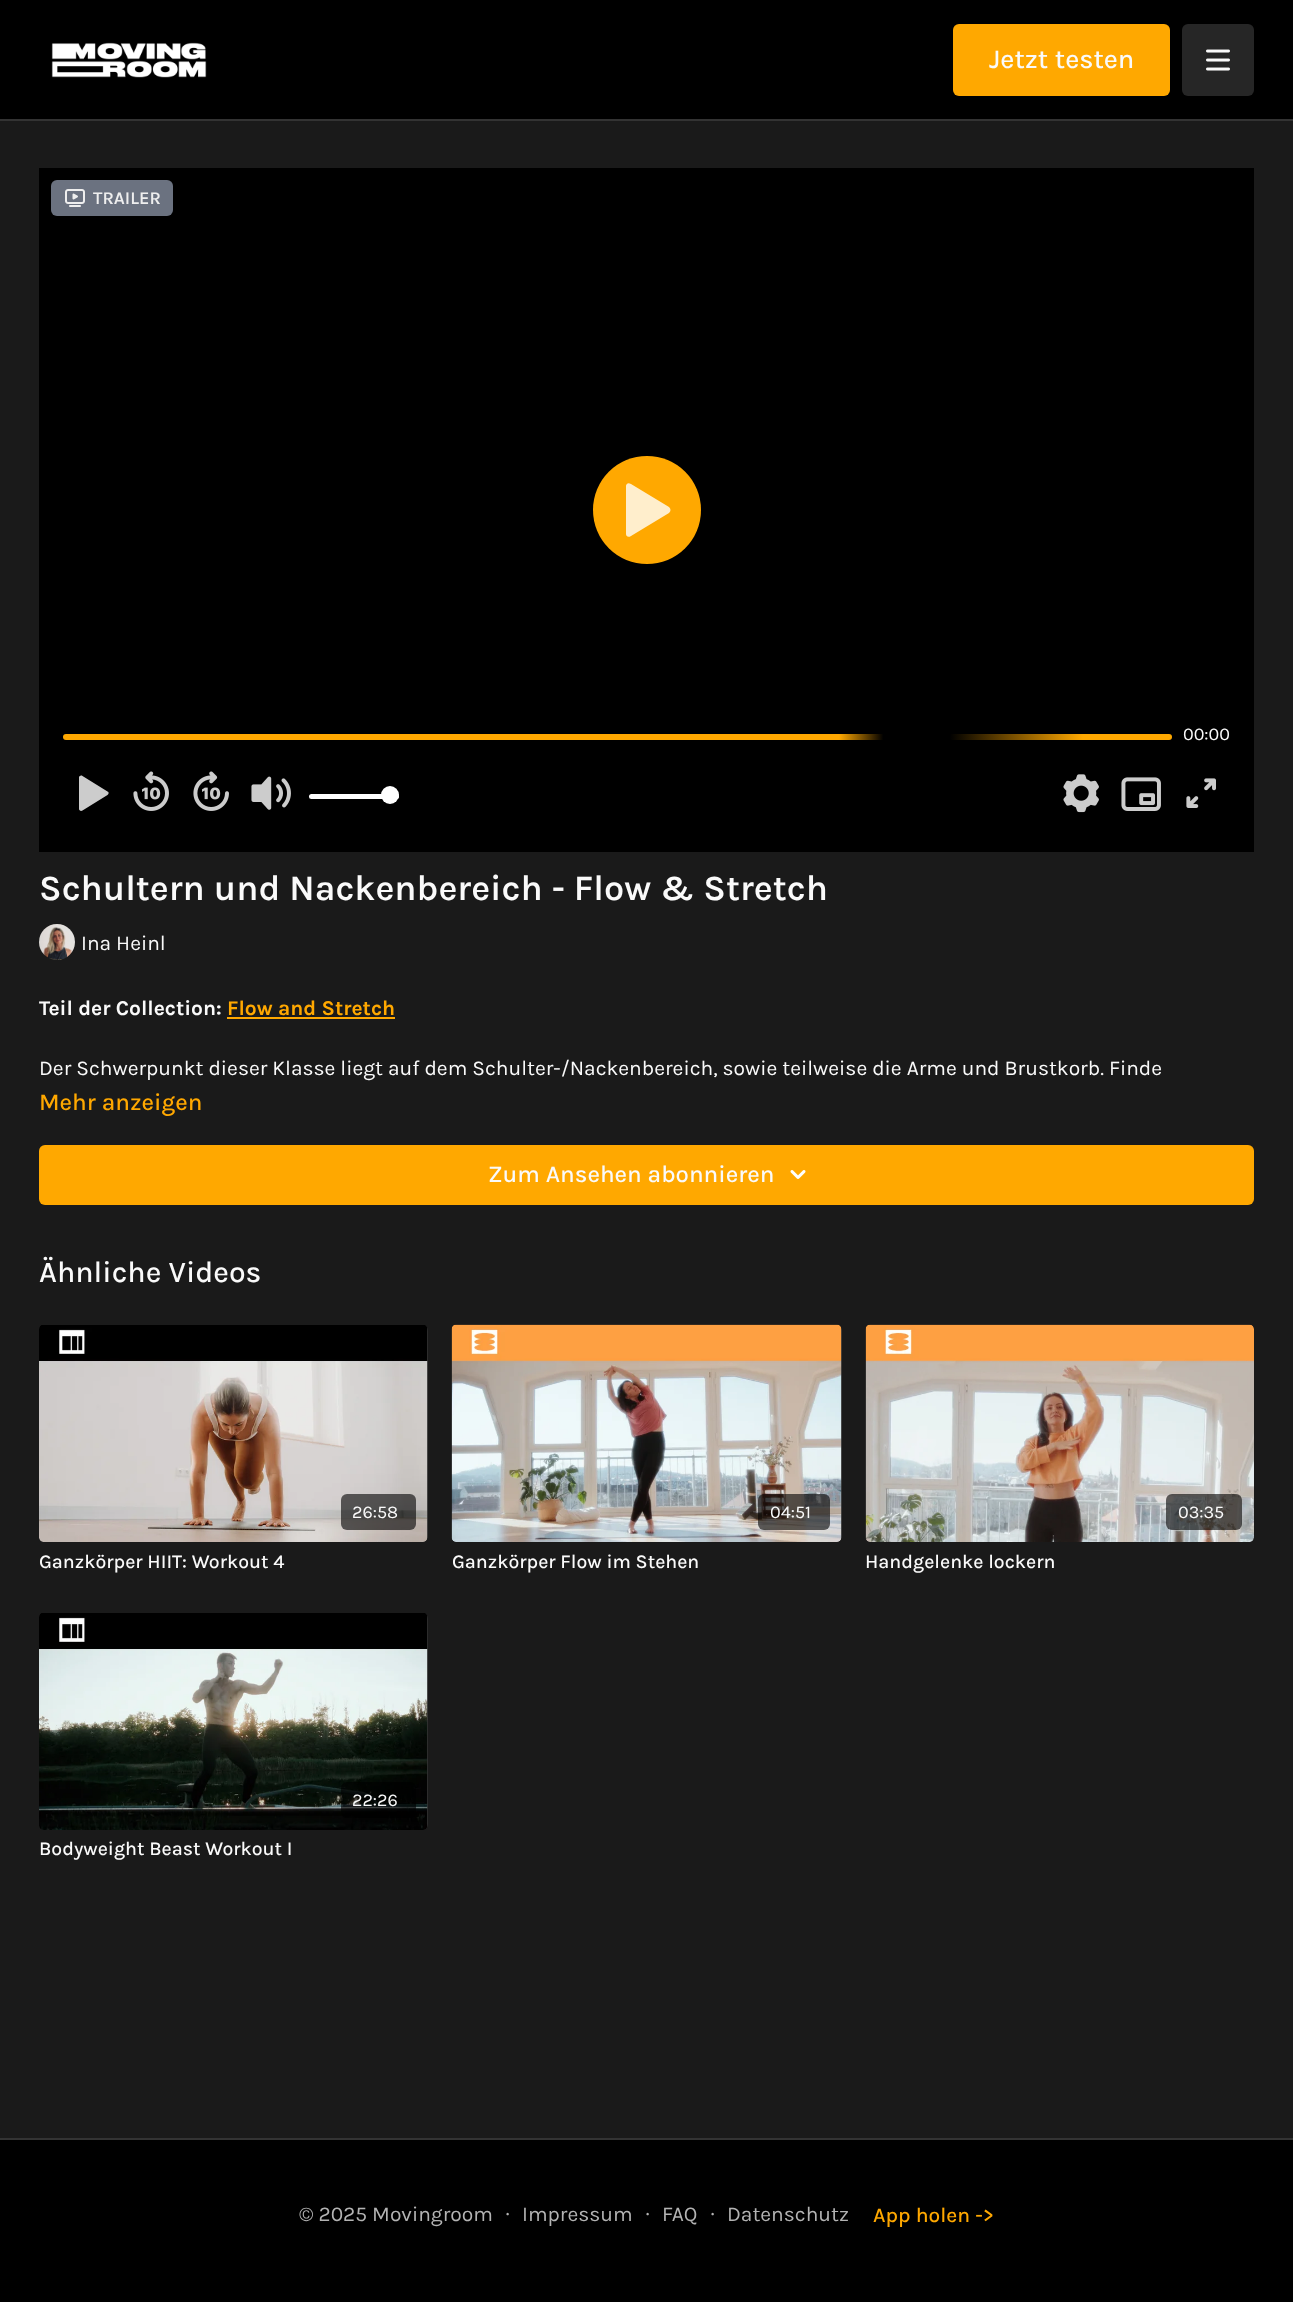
<!DOCTYPE html>
<meta charset="utf-8">
<style>body { margin: 0 } canvas { display: block }</style>
<canvas id="canvas" width="1293" height="2302"></canvas>
<img id="img1" src="images/1.png" hidden>
<img id="img2" src="images/2.png" hidden>
<img id="img3" src="images/3.png" hidden>
<img id="img4" src="images/4.png" hidden>
<img id="img5" src="images/5.png" hidden>
<img id="img6" src="images/6.png" hidden>
<img id="img7" src="images/7.png" hidden>
<img id="img8" src="images/8.png" hidden>
<img id="img9" src="images/9.png" hidden>
<img id="img10" src="images/10.png" hidden>
<img id="img11" src="images/11.png" hidden>
<img id="img12" src="images/12.png" hidden>
<img id="img13" src="images/13.png" hidden>
<img id="img14" src="images/14.png" hidden>
<img id="img15" src="images/15.png" hidden>
<script>
window.onload = function () {
    const canvas = document.getElementById('canvas');
    const context = canvas.getContext('2d');
    context.miterLimit = 4;
    context.fontKerning = 'normal';
    let gradient;

    context.fillStyle = 'rgb(26, 26, 26)';
    context.fillRect(0, 0, 1293, 2302);
    context.fillStyle = 'rgb(0, 0, 0)';
    context.fillRect(0, 0, 1293, 119);
    context.fillStyle = 'rgb(51, 51, 51)';
    context.fillRect(0, 119, 1293, 2);
    context.drawImage(document.getElementById('img1'), 51, 42, 156, 36);
    context.fillStyle = 'rgb(255, 168, 0)';
    context.beginPath();
    context.roundRect(953, 24, 217, 72, 6);
    context.fill();
    context.fillStyle = 'rgb(38, 38, 38)';
    context.beginPath();
    context.roundRect(1182, 24, 72, 72, 6);
    context.fill();
    context.drawImage(document.getElementById('img2'), 1206, 49, 24, 22);
    context.fillStyle = 'rgb(0, 0, 0)';
    context.fillRect(39, 168, 1215, 684);
    context.fillStyle = 'rgb(107, 114, 128)';
    context.beginPath();
    context.roundRect(51, 180, 122, 36, 6);
    context.fill();
    context.drawImage(document.getElementById('img3'), 65, 189, 20, 18);
    context.fillStyle = 'rgb(255, 168, 0)';
    context.beginPath();
    context.arc(647, 510, 54, 0, 2 * Math.PI);
    context.fill();
    context.fillStyle = 'rgb(255, 238, 204)';
    context.beginPath();
    context.moveTo(631, 484);
    context.bezierCurveTo(628, 482, 626, 484, 626, 486);
    context.lineTo(626, 534);
    context.bezierCurveTo(626, 536, 628, 538, 631, 536);
    context.lineTo(669, 513);
    context.bezierCurveTo(671, 511, 671, 509, 669, 507);
    context.closePath();
    context.fill();
    gradient = context.createLinearGradient(63, 740, 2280, 739);
    gradient.addColorStop(0.35, 'rgb(255, 168, 0)');
    gradient.addColorStop(0.37, 'rgb(0, 0, 0)');
    gradient.addColorStop(0.4, 'rgb(0, 0, 0)');
    gradient.addColorStop(0.46, 'rgb(255, 168, 0)');
    gradient.addColorStop(1, 'rgb(255, 168, 0)');
    context.fillStyle = gradient;
    context.beginPath();
    context.roundRect(63, 734, 1109, 6, 3);
    context.fill();
    context.fillStyle = 'rgb(204, 204, 204)';
    context.beginPath();
    context.moveTo(82.5, 776);
    context.bezierCurveTo(81, 775, 79, 776, 79, 777.5);
    context.lineTo(79, 809);
    context.bezierCurveTo(79, 810.5, 81, 811.5, 82.5, 810.5);
    context.lineTo(107.5, 795);
    context.bezierCurveTo(109, 794, 109, 792, 107.5, 791.5);
    context.closePath();
    context.fill();
    context.drawImage(document.getElementById('img4'), 133, 771, 36, 40);
    context.drawImage(document.getElementById('img5'), 193, 771, 36, 40);
    context.drawImage(document.getElementById('img6'), 251, 776, 40, 34);
    context.fillStyle = 'rgb(255, 255, 255)';
    context.beginPath();
    context.roundRect(309, 794, 90, 5, 2.5);
    context.fill();
    context.beginPath();
    context.arc(390, 795, 9, 0, 2 * Math.PI);
    context.fill();
    context.drawImage(document.getElementById('img7'), 1063, 774, 36, 39);
    context.drawImage(document.getElementById('img8'), 1121, 777, 40, 34);
    context.drawImage(document.getElementById('img9'), 1186, 778, 30, 30);
    context.drawImage(document.getElementById('img10'), 39, 924, 36, 36);
    context.fillStyle = 'rgb(255, 168, 0)';
    context.fillRect(227, 1017, 168, 2);
    context.beginPath();
    context.roundRect(39, 1145, 1215, 60, 6);
    context.fill();
    context.drawImage(document.getElementById('img11'), 790, 1170, 16, 9);
    gradient = context.createLinearGradient(39, 1433, 428, 1433);
    gradient.addColorStop(0.08, 'rgb(56, 56, 56)');
    gradient.addColorStop(0.18, 'rgb(53, 53, 53)');
    gradient.addColorStop(0.33, 'rgb(51, 51, 51)');
    context.fillStyle = gradient;
    context.beginPath();
    context.roundRect(39, 1325, 389, 217, 6);
    context.fill();
    context.drawImage(document.getElementById('img12'), 39, 1325, 389, 217);
    context.fillStyle = 'rgba(0, 0, 0, 0.6)';
    context.beginPath();
    context.roundRect(341, 1494, 75, 36, 6);
    context.fill();
    gradient = context.createLinearGradient(452, 1433, 842, 1433);
    gradient.addColorStop(0.08, 'rgb(56, 56, 56)');
    gradient.addColorStop(0.18, 'rgb(53, 53, 53)');
    gradient.addColorStop(0.33, 'rgb(51, 51, 51)');
    context.fillStyle = gradient;
    context.beginPath();
    context.roundRect(452, 1325, 390, 217, 6);
    context.fill();
    context.drawImage(document.getElementById('img13'), 451, 1324, 391, 218);
    context.fillStyle = 'rgba(0, 0, 0, 0.6)';
    context.beginPath();
    context.roundRect(758, 1494, 72, 36, 6);
    context.fill();
    context.drawImage(document.getElementById('img14'), 865, 1324, 389, 218);
    context.beginPath();
    context.roundRect(1166, 1494, 76, 36, 6);
    context.fill();
    gradient = context.createLinearGradient(39, 1721, 428, 1721);
    gradient.addColorStop(0.08, 'rgb(56, 56, 56)');
    gradient.addColorStop(0.18, 'rgb(53, 53, 53)');
    gradient.addColorStop(0.33, 'rgb(51, 51, 51)');
    context.fillStyle = gradient;
    context.beginPath();
    context.roundRect(39, 1613, 389, 217, 6);
    context.fill();
    context.drawImage(document.getElementById('img15'), 39, 1613, 389, 217);
    context.fillStyle = 'rgba(0, 0, 0, 0.6)';
    context.beginPath();
    context.roundRect(341, 1782, 75, 36, 6);
    context.fill();
    context.fillStyle = 'rgb(0, 0, 0)';
    context.fillRect(0, 2140, 1293, 162);
    context.fillStyle = 'rgb(51, 51, 51)';
    context.fillRect(0, 2138, 1293, 2);
    context.font = '500 27px Karla';
    context.fillStyle = 'rgb(250, 250, 250)';
    context.fillText('Jetzt testen', 989, 68);
    context.font = '600 18px Karla';
    context.fillStyle = 'rgb(238, 238, 238)';
    context.fillText('TRAILER', 93, 204);
    context.font = '18px Karla';
    context.fillStyle = 'rgb(250, 250, 250)';
    context.fillText('00:00', 1183, 740);
    context.font = '600 36px Karla';
    context.fillText('Schultern und Nackenbereich - Flow & Stretch', 39, 900);
    context.font = '21px Karla';
    context.fillText('Ina Heinl', 81, 950);
    context.font = 'bold 21px Karla';
    context.fillText('Teil der Collection:', 39, 1015);
    context.fillStyle = 'rgb(255, 168, 0)';
    context.fillText('Flow and Stretch', 227, 1015);
    context.font = '21px Karla';
    context.fillStyle = 'rgb(250, 250, 250)';
    context.fillText('Der Schwerpunkt dieser Klasse liegt auf dem Schulter-/Nackenbereich, sowie teilweise die Arme und Brustkorb. Finde', 39, 1075);
    context.font = '500 24px Karla';
    context.fillStyle = 'rgb(255, 168, 0)';
    context.fillText('Mehr anzeigen', 39, 1110);
    context.fillStyle = 'rgb(250, 250, 250)';
    context.fillText('Zum Ansehen abonnieren', 488, 1182);
    context.font = '500 30px Karla';
    context.fillText('Ähnliche Videos', 39, 1282);
    context.font = '18px Karla';
    context.fillText('26:58', 352, 1518);
    context.font = '500 19.5px Karla';
    context.fillText('Ganzkörper HIIT: Workout 4', 39, 1568);
    context.font = '18px Karla';
    context.fillText('04:51', 770, 1518);
    context.font = '500 19.5px Karla';
    context.fillText('Ganzkörper Flow im Stehen', 452, 1568);
    context.font = '18px Karla';
    context.fillText('03:35', 1178, 1518);
    context.font = '500 19.5px Karla';
    context.fillText('Handgelenke lockern', 865, 1568);
    context.font = '18px Karla';
    context.fillText('22:26', 352, 1806);
    context.font = '500 19.5px Karla';
    context.fillText('Bodyweight Beast Workout I', 39, 1855);
    context.font = '21px Karla';
    context.fillStyle = 'rgb(179, 179, 179)';
    context.fillText('© 2025 Movingroom', 299, 2221);
    context.font = '21px Liberation Serif';
    context.fillText('∙', 505, 2221);
    context.font = '21px Karla';
    context.fillText('Impressum', 522, 2221);
    context.font = '21px Liberation Serif';
    context.fillText('∙', 645, 2221);
    context.font = '21px Karla';
    context.fillText('FAQ', 662, 2221);
    context.font = '21px Liberation Serif';
    context.fillText('∙', 710, 2221);
    context.font = '21px Karla';
    context.fillText('Datenschutz', 727, 2221);
    context.font = '500 21px Karla';
    context.fillStyle = 'rgb(255, 168, 0)';
    context.fillText('App holen ->', 873, 2222);
};
</script>
